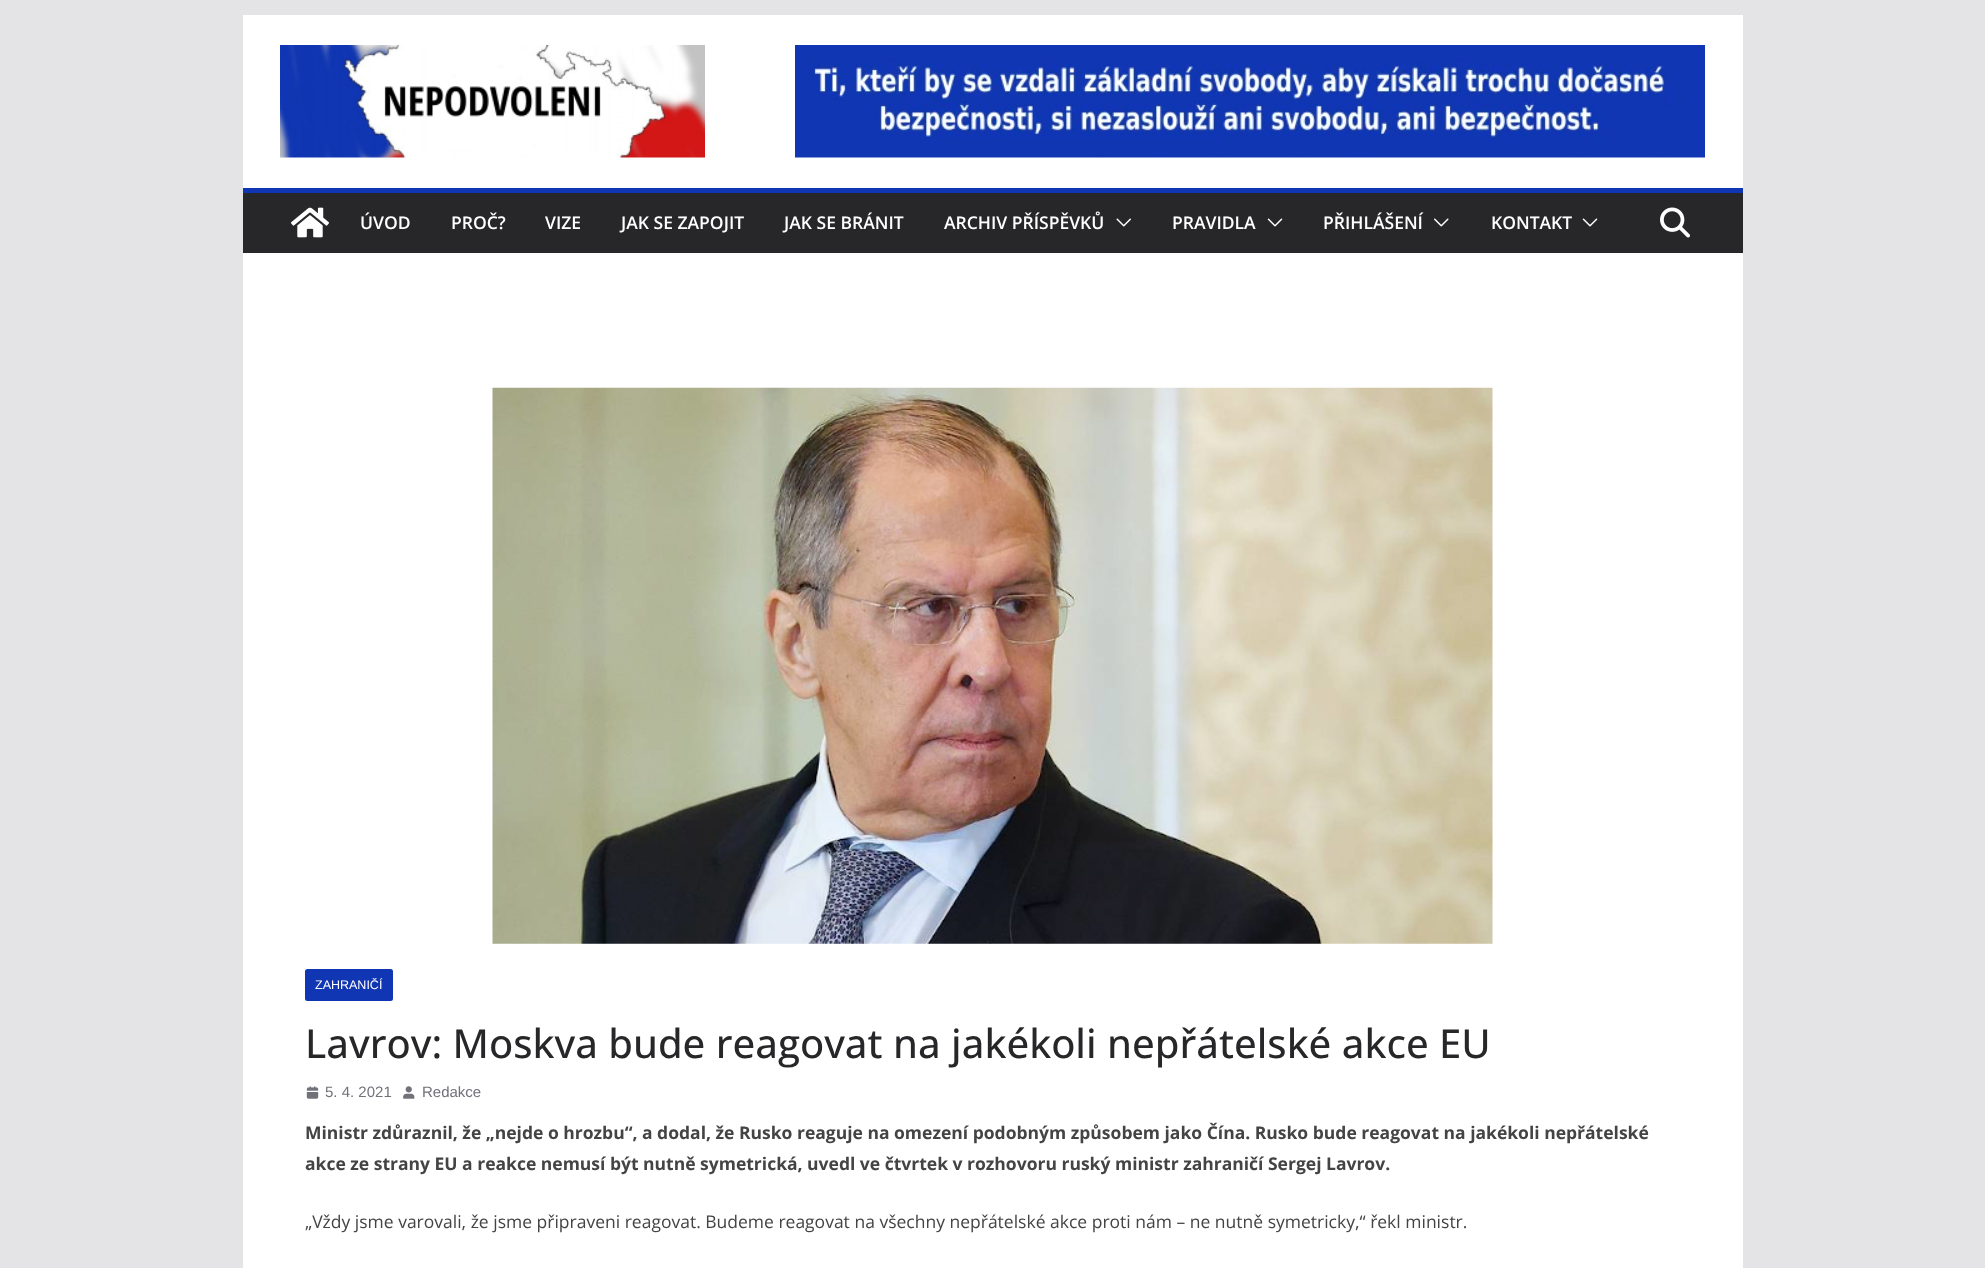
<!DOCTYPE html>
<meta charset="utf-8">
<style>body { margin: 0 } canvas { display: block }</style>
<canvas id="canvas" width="1985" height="1268"></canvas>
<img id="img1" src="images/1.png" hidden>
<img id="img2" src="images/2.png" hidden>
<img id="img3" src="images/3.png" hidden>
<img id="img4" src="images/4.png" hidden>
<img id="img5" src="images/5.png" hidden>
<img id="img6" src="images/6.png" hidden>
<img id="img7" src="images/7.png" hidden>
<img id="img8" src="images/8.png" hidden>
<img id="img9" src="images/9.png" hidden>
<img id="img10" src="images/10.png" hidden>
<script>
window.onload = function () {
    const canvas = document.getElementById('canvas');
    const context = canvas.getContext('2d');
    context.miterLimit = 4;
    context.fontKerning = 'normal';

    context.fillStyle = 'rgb(228, 228, 231)';
    context.fillRect(0, 0, 1985, 1268);
    context.fillStyle = 'rgb(255, 255, 255)';
    context.fillRect(243, 15, 1500, 1253);
    context.drawImage(document.getElementById('img1'), 280, 45, 425, 113);
    context.drawImage(document.getElementById('img2'), 795, 45, 910, 113);
    context.fillStyle = 'rgb(39, 39, 42)';
    context.fillRect(243, 193, 1500, 60);
    context.fillStyle = 'rgb(16, 54, 179)';
    context.fillRect(243, 188, 1500, 5);
    context.drawImage(document.getElementById('img3'), 291, 207, 38, 31);
    context.drawImage(document.getElementById('img4'), 1116, 218, 15, 9);
    context.drawImage(document.getElementById('img5'), 1267, 218, 16, 9);
    context.drawImage(document.getElementById('img6'), 1434, 218, 15, 9);
    context.drawImage(document.getElementById('img5'), 1582, 218, 16, 9);
    context.drawImage(document.getElementById('img7'), 1660, 207, 30, 31);
    context.drawImage(document.getElementById('img8'), 492, 387, 1001, 557);
    context.beginPath();
    context.roundRect(305, 969, 88, 32, 2.5);
    context.fill();
    context.drawImage(document.getElementById('img9'), 306, 1086, 13, 13);
    context.drawImage(document.getElementById('img10'), 403, 1086, 12, 13);
    context.font = '600 17.5px Open Sans';
    context.fillStyle = 'rgb(255, 255, 255)';
    context.fillText('ÚVOD', 360, 229);
    context.fillText('PROČ?', 451, 229);
    context.fillText('VIZE', 545, 229);
    context.fillText('JAK SE ZAPOJIT', 621, 229);
    context.fillText('JAK SE BRÁNIT', 784, 229);
    context.fillText('ARCHIV PŘÍSPĚVKŮ', 944, 229);
    context.fillText('PRAVIDLA', 1172, 229);
    context.fillText('PŘIHLÁŠENÍ', 1323, 229);
    context.fillText('KONTAKT', 1491, 229);
    context.font = '12.5px Liberation Sans';
    context.fillText('ZAHRANIČÍ', 315, 989);
    context.font = '500 40px Open Sans';
    context.fillStyle = 'rgb(39, 39, 42)';
    context.fillText('Lavrov: Moskva bude reagovat na jakékoli nepřátelské akce EU', 305, 1058);
    context.font = '15px Liberation Sans';
    context.fillStyle = 'rgb(113, 113, 122)';
    context.fillText('5. 4. 2021', 325, 1097);
    context.fillText('Redakce', 422, 1097);
    context.font = 'bold 17.5px Open Sans';
    context.fillStyle = 'rgb(68, 68, 68)';
    context.fillText('Ministr zdůraznil, že „nejde o hrozbu“, a dodal, že Rusko reaguje na omezení podobným způsobem jako Čína. Rusko bude reagovat na jakékoli nepřátelské', 305, 1139);
    context.fillText('akce ze strany EU a reakce nemusí být nutně symetrická, uvedl ve čtvrtek v rozhovoru ruský ministr zahraničí Sergej Lavrov.', 305, 1170);
    context.font = '17.5px Open Sans';
    context.fillText('„Vždy jsme varovali, že jsme připraveni reagovat. Budeme reagovat na všechny nepřátelské akce proti nám – ne nutně symetricky,“ řekl ministr.', 305, 1228);
};
</script>
